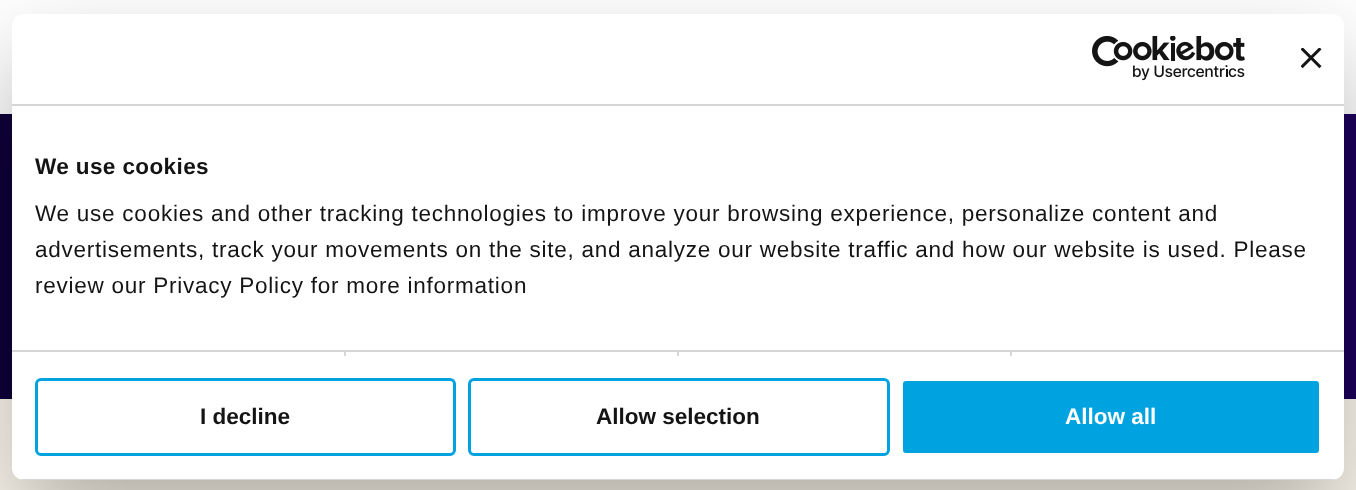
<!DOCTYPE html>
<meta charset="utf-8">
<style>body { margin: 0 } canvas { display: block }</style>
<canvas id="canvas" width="1356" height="490"></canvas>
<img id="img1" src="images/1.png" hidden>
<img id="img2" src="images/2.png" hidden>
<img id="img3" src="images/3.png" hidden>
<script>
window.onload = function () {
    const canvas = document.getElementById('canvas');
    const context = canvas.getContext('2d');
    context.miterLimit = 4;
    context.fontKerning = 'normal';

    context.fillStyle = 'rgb(255, 255, 255)';
    context.fillRect(0, 0, 1356, 490);
    context.drawImage(document.getElementById('img1'), 0, 114, 1356, 285);
    context.fillStyle = 'rgb(255, 250, 240)';
    context.fillRect(0, 399, 1356, 91);
    context.fillStyle = 'rgba(0, 0, 0, 0.3)';
    context.filter = 'blur(51px)';
    context.beginPath();
    context.roundRect(12, 62, 1332, 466, 12);
    context.fill();
    context.filter = 'none';
    context.fillStyle = 'rgb(255, 255, 255)';
    context.beginPath();
    context.roundRect(12, 14, 1332, 466, 12);
    context.fill();
    context.fillStyle = 'rgb(214, 214, 214)';
    context.fillRect(12, 104, 1332, 2);
    context.drawImage(document.getElementById('img2'), 1092, 36, 153, 45);
    context.drawImage(document.getElementById('img3'), 1301, 48, 21, 21);
    context.fillRect(344, 351, 2, 5);
    context.fillRect(677, 351, 2, 5);
    context.fillRect(1010, 351, 2, 5);
    context.fillRect(12, 350, 1332, 2);
    context.save();
    context.beginPath();
    context.roundRect(12, 14, 1332, 466, 12);
    context.clip();
    context.fillRect(12, 479, 1332, 1);
    context.restore();
    context.beginPath();
    context.roundRect(36.5, 379.5, 418, 75, 4.5);
    context.strokeStyle = 'rgb(0, 163, 224)';
    context.lineWidth = 3;
    context.stroke();
    context.beginPath();
    context.roundRect(469.5, 379.5, 419, 75, 4.5);
    context.stroke();
    context.fillStyle = 'rgb(0, 163, 224)';
    context.beginPath();
    context.roundRect(901.5, 379.5, 419, 75, 4.5);
    context.fill();
    context.strokeStyle = 'rgb(255, 255, 255)';
    context.stroke();
    context.letterSpacing = '0.4px';
    context.font = 'bold 22.5px Liberation Sans';
    context.fillStyle = 'rgb(20, 20, 20)';
    context.fillText('We use cookies', 35, 174);
    context.letterSpacing = '0.75px';
    context.font = '22.5px Liberation Sans';
    context.fillText('We use cookies and other tracking technologies to improve your browsing experience, personalize content and', 35, 221);
    context.fillText('advertisements, track your movements on the site, and analyze our website traffic and how our website is used. Please', 35, 257);
    context.fillText('review our Privacy Policy for more information', 35, 293);
    context.letterSpacing = '0px';
    context.font = 'bold 22.5px Liberation Sans';
    context.fillText('I decline', 200, 424);
    context.fillText('Allow selection', 596, 424);
    context.fillStyle = 'rgb(255, 255, 255)';
    context.fillText('Allow all', 1065, 424);
};
</script>
